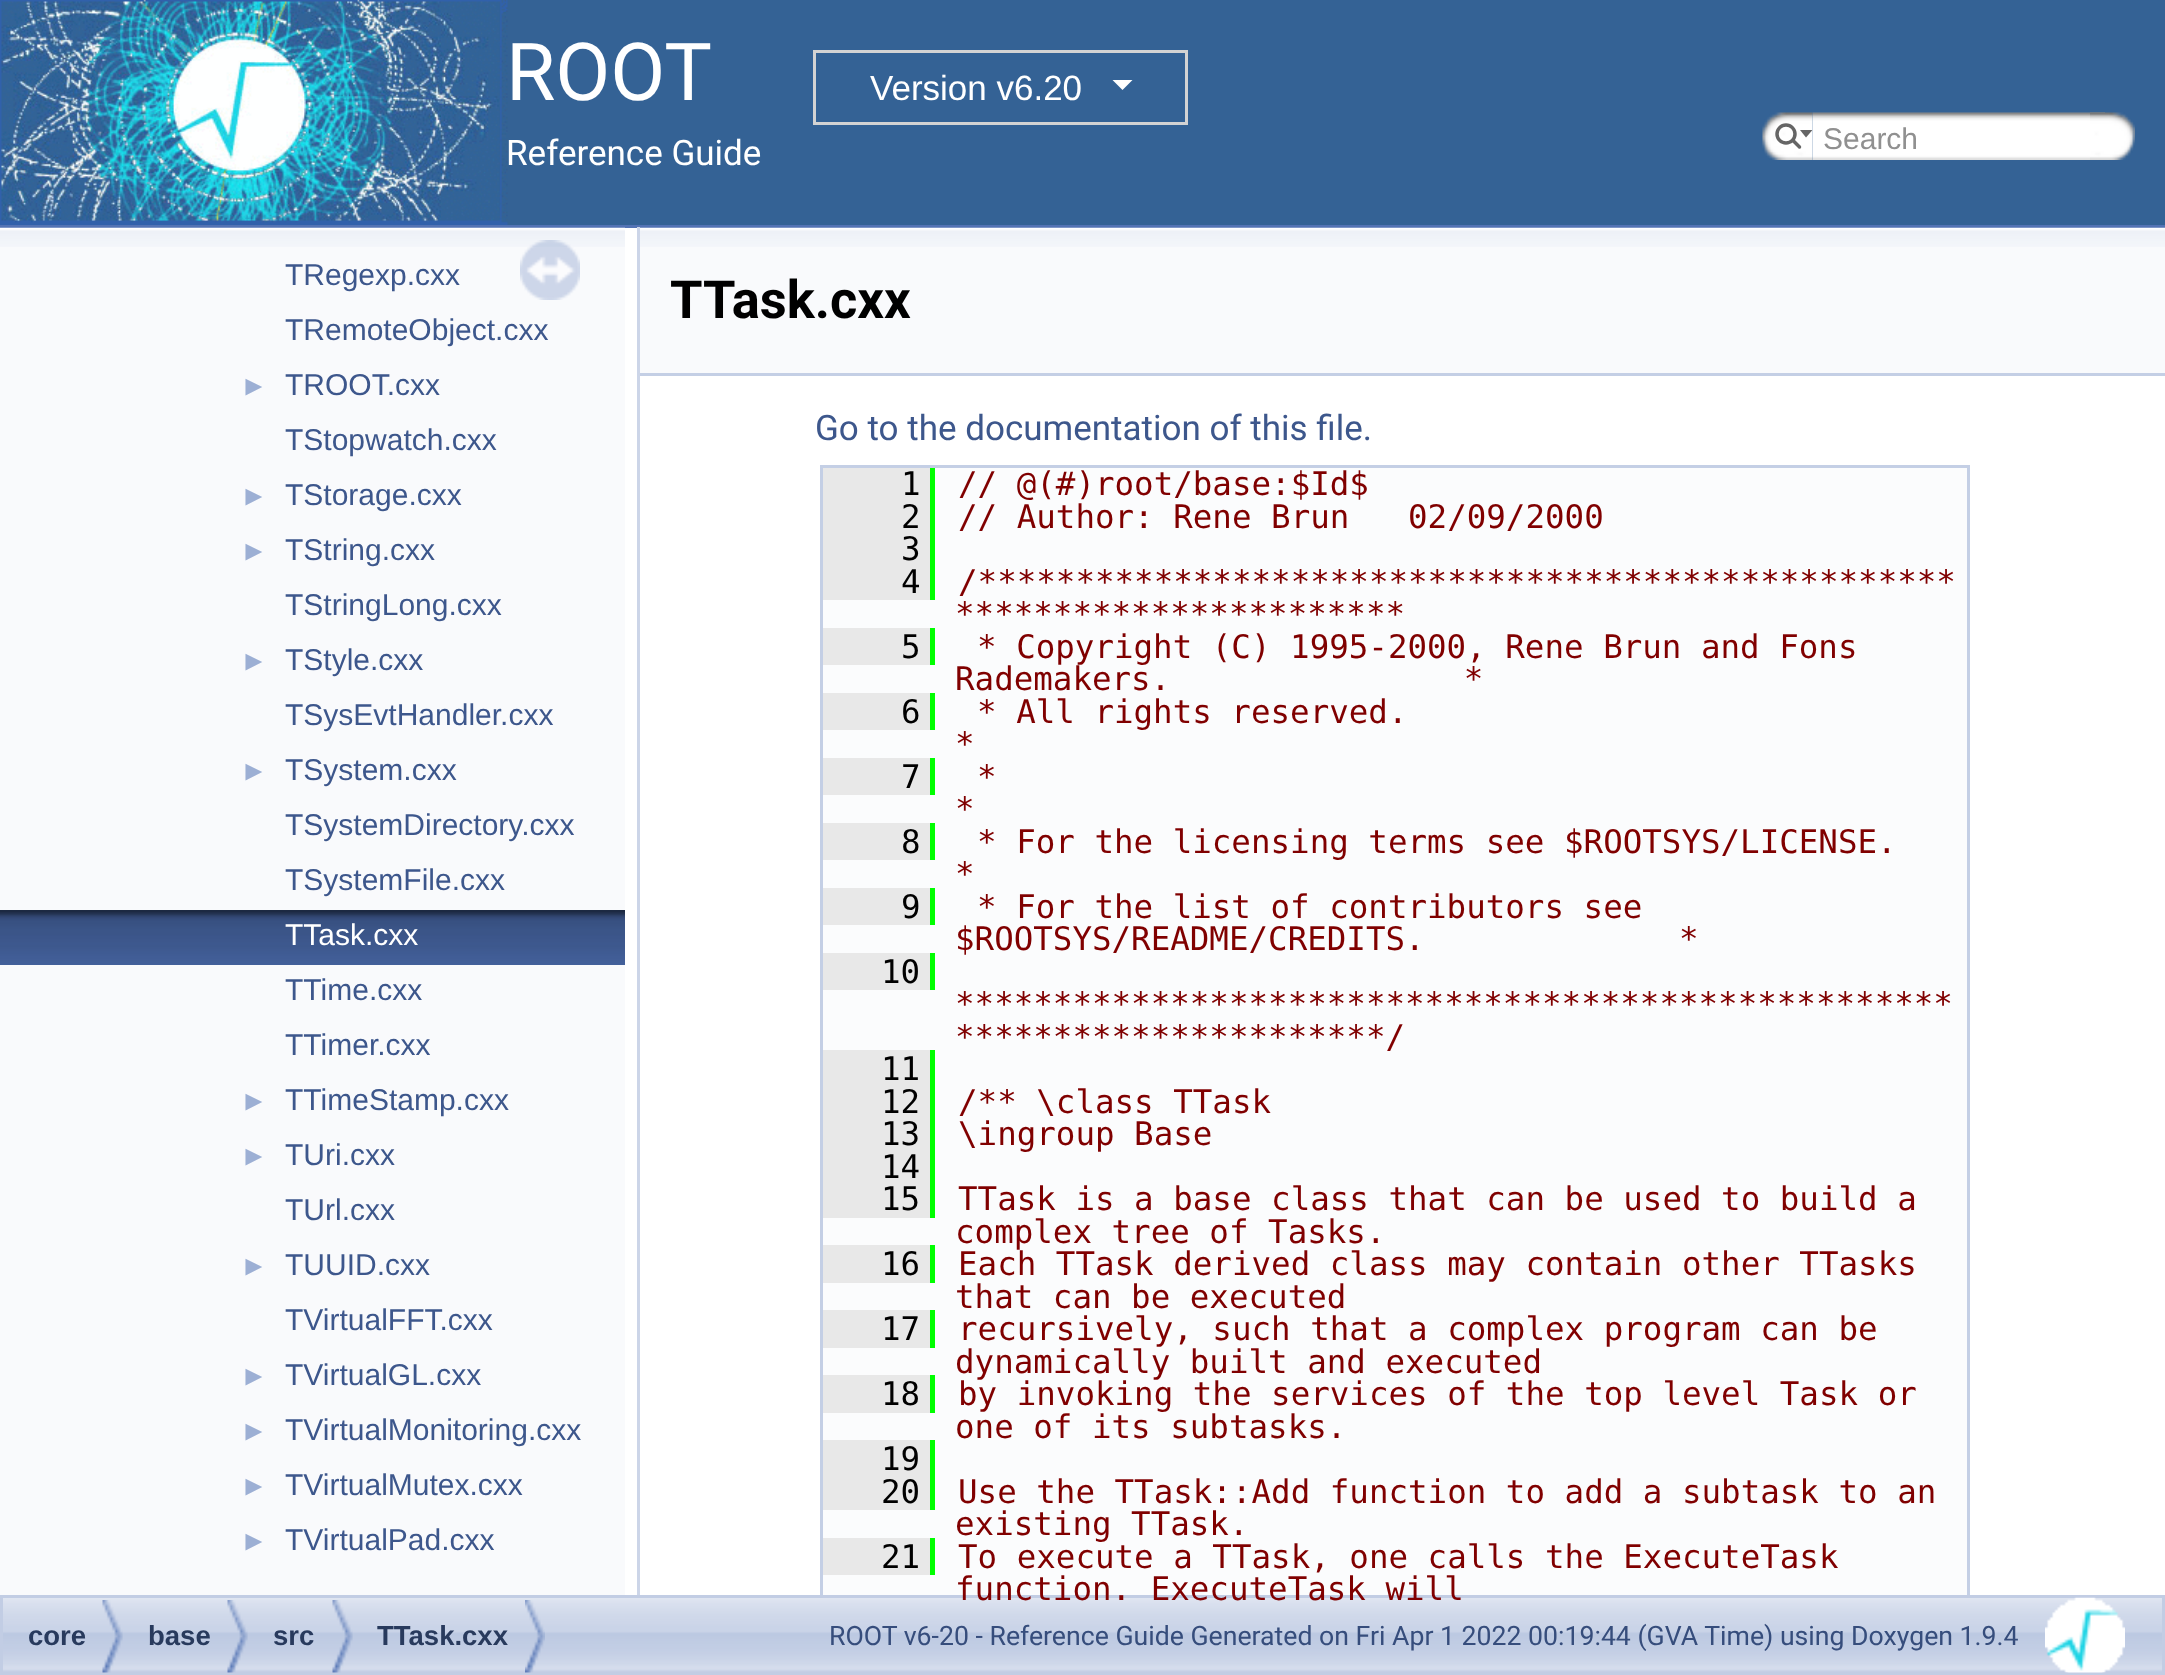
<!DOCTYPE html>
<meta charset="utf-8">
<style>body { margin: 0 } canvas { display: block }</style>
<canvas id="canvas" width="2165" height="1675"></canvas>
<img id="img1" src="images/1.png" hidden>
<img id="img2" src="images/2.png" hidden>
<img id="img3" src="images/3.png" hidden>
<img id="img4" src="images/4.png" hidden>
<img id="img5" src="images/5.png" hidden>
<img id="img6" src="images/6.png" hidden>
<img id="img7" src="images/7.png" hidden>
<img id="img8" src="images/8.png" hidden>
<img id="img9" src="images/9.png" hidden>
<img id="img10" src="images/10.png" hidden>
<img id="img11" src="images/11.png" hidden>
<img id="img12" src="images/12.png" hidden>
<script>
window.onload = function () {
    const canvas = document.getElementById('canvas');
    const context = canvas.getContext('2d');
    context.miterLimit = 4;
    context.fontKerning = 'normal';

    context.fillStyle = 'rgb(255, 255, 255)';
    context.fillRect(0, 0, 2165, 1675);
    context.fillStyle = 'rgb(83, 115, 180)';
    context.fillRect(0, 225, 2165, 3);
    context.fillStyle = 'rgb(52, 98, 149)';
    context.fillRect(507, 0, 1658, 225);
    context.drawImage(document.getElementById('img1'), 0, 0, 508, 225);
    context.strokeStyle = 'rgb(211, 211, 211)';
    context.lineWidth = 3;
    context.strokeRect(814.5, 51.5, 372, 72);
    context.fillStyle = 'rgb(255, 255, 255)';
    context.beginPath();
    context.moveTo(1112.5, 80);
    context.lineTo(1132.5, 80);
    context.lineTo(1122.5, 90);
    context.closePath();
    context.fill();
    context.drawImage(document.getElementById('img2'), 1762, 112, 51, 48);
    context.beginPath();
    context.arc(1786, 134, 9, 0, 2 * Math.PI);
    context.strokeStyle = 'rgb(101, 101, 101)';
    context.lineWidth = 3.5;
    context.stroke();
    context.fillStyle = 'rgb(101, 101, 101)';
    context.beginPath();
    context.moveTo(1800, 130);
    context.lineTo(1806, 137.5);
    context.lineTo(1812.5, 130);
    context.closePath();
    context.fill();
    context.beginPath();
    context.moveTo(1793, 140.5);
    context.lineTo(1799.5, 147);
    context.lineCap = 'round';
    context.stroke();
    context.drawImage(document.getElementById('img3'), 1812, 112, 293, 48);
    context.drawImage(document.getElementById('img4'), 2090, 112, 45, 48);
    context.fillStyle = 'rgb(249, 250, 252)';
    context.fillRect(0, 247, 625, 1348);
    context.drawImage(document.getElementById('img5'), 0, 227, 625, 20);
    context.drawImage(document.getElementById('img6'), 520, 240, 60, 60);
    context.drawImage(document.getElementById('img7'), 0, 910, 625, 55);
    context.fillStyle = 'rgb(204, 213, 232)';
    context.fillRect(637, 227, 3, 1368);
    context.fillStyle = 'rgb(249, 250, 252)';
    context.fillRect(640, 247, 1525, 126);
    context.drawImage(document.getElementById('img8'), 640, 227, 1525, 20);
    context.fillStyle = 'rgb(196, 207, 229)';
    context.fillRect(640, 373, 1525, 3);
    context.fillStyle = 'rgb(251, 252, 253)';
    context.fillRect(823, 468, 1144, 1127);
    context.strokeStyle = 'rgb(196, 207, 229)';
    context.lineWidth = 3;
    context.strokeRect(821.5, 466.5, 1147, 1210);
    context.fillStyle = 'rgb(232, 232, 232)';
    context.fillRect(823, 468, 107, 132);
    context.fillStyle = 'rgb(0, 255, 0)';
    context.fillRect(930, 468, 5, 132);
    context.fillStyle = 'rgb(232, 232, 232)';
    context.fillRect(823, 628, 107, 37);
    context.fillStyle = 'rgb(0, 255, 0)';
    context.fillRect(930, 628, 5, 37);
    context.fillStyle = 'rgb(232, 232, 232)';
    context.fillRect(823, 693, 107, 37);
    context.fillStyle = 'rgb(0, 255, 0)';
    context.fillRect(930, 693, 5, 37);
    context.fillStyle = 'rgb(232, 232, 232)';
    context.fillRect(823, 758, 107, 37);
    context.fillStyle = 'rgb(0, 255, 0)';
    context.fillRect(930, 758, 5, 37);
    context.fillStyle = 'rgb(232, 232, 232)';
    context.fillRect(823, 823, 107, 37);
    context.fillStyle = 'rgb(0, 255, 0)';
    context.fillRect(930, 823, 5, 37);
    context.fillStyle = 'rgb(232, 232, 232)';
    context.fillRect(823, 888, 107, 37);
    context.fillStyle = 'rgb(0, 255, 0)';
    context.fillRect(930, 888, 5, 37);
    context.fillStyle = 'rgb(232, 232, 232)';
    context.fillRect(823, 953, 107, 37);
    context.fillStyle = 'rgb(0, 255, 0)';
    context.fillRect(930, 953, 5, 37);
    context.fillStyle = 'rgb(232, 232, 232)';
    context.fillRect(823, 1050, 107, 168);
    context.fillStyle = 'rgb(0, 255, 0)';
    context.fillRect(930, 1050, 5, 168);
    context.fillStyle = 'rgb(232, 232, 232)';
    context.fillRect(823, 1245, 107, 38);
    context.fillStyle = 'rgb(0, 255, 0)';
    context.fillRect(930, 1245, 5, 38);
    context.fillStyle = 'rgb(232, 232, 232)';
    context.fillRect(823, 1310, 107, 38);
    context.fillStyle = 'rgb(0, 255, 0)';
    context.fillRect(930, 1310, 5, 38);
    context.fillStyle = 'rgb(232, 232, 232)';
    context.fillRect(823, 1375, 107, 38);
    context.fillStyle = 'rgb(0, 255, 0)';
    context.fillRect(930, 1375, 5, 38);
    context.fillStyle = 'rgb(232, 232, 232)';
    context.fillRect(823, 1440, 107, 70);
    context.fillStyle = 'rgb(0, 255, 0)';
    context.fillRect(930, 1440, 5, 70);
    context.fillStyle = 'rgb(232, 232, 232)';
    context.fillRect(823, 1538, 107, 37);
    context.fillStyle = 'rgb(0, 255, 0)';
    context.fillRect(930, 1538, 5, 37);
    context.drawImage(document.getElementById('img9'), 3, 1598, 2159, 74);
    context.strokeStyle = 'rgb(194, 205, 228)';
    context.strokeRect(1.5, 1596.5, 2162, 77);
    context.drawImage(document.getElementById('img10'), 102, 1600, 21, 73);
    context.drawImage(document.getElementById('img10'), 227, 1600, 21, 73);
    context.drawImage(document.getElementById('img10'), 332, 1600, 21, 73);
    context.drawImage(document.getElementById('img11'), 525, 1600, 20, 73);
    context.drawImage(document.getElementById('img12'), 2045, 1597, 80, 76);
    context.font = '80px Roboto';
    context.fillStyle = 'rgb(255, 255, 255)';
    context.fillText('ROOT', 506, 100);
    context.font = '35px Liberation Sans';
    context.fillText('Version v6.20', 870, 100);
    context.font = '35px Roboto';
    context.fillText('Reference Guide', 506, 165);
    context.font = '30px Liberation Sans';
    context.fillStyle = 'rgb(144, 144, 144)';
    context.fillText('Search', 1823, 149);
    context.fillStyle = 'rgb(61, 87, 140)';
    context.fillText('TRegexp.cxx', 285, 285);
    context.fillText('TRemoteObject.cxx', 285, 340);
    context.font = '28px Liberation Sans';
    context.fillStyle = 'rgb(156, 175, 212)';
    context.fillText('►', 240, 395);
    context.font = '30px Liberation Sans';
    context.fillStyle = 'rgb(61, 87, 140)';
    context.fillText('TROOT.cxx', 285, 395);
    context.fillText('TStopwatch.cxx', 285, 450);
    context.font = '28px Liberation Sans';
    context.fillStyle = 'rgb(156, 175, 212)';
    context.fillText('►', 240, 505);
    context.font = '30px Liberation Sans';
    context.fillStyle = 'rgb(61, 87, 140)';
    context.fillText('TStorage.cxx', 285, 505);
    context.font = '28px Liberation Sans';
    context.fillStyle = 'rgb(156, 175, 212)';
    context.fillText('►', 240, 560);
    context.font = '30px Liberation Sans';
    context.fillStyle = 'rgb(61, 87, 140)';
    context.fillText('TString.cxx', 285, 560);
    context.fillText('TStringLong.cxx', 285, 615);
    context.font = '28px Liberation Sans';
    context.fillStyle = 'rgb(156, 175, 212)';
    context.fillText('►', 240, 670);
    context.font = '30px Liberation Sans';
    context.fillStyle = 'rgb(61, 87, 140)';
    context.fillText('TStyle.cxx', 285, 670);
    context.fillText('TSysEvtHandler.cxx', 285, 725);
    context.font = '28px Liberation Sans';
    context.fillStyle = 'rgb(156, 175, 212)';
    context.fillText('►', 240, 780);
    context.font = '30px Liberation Sans';
    context.fillStyle = 'rgb(61, 87, 140)';
    context.fillText('TSystem.cxx', 285, 780);
    context.fillText('TSystemDirectory.cxx', 285, 835);
    context.fillText('TSystemFile.cxx', 285, 890);
    context.fillStyle = 'rgb(255, 255, 255)';
    context.fillText('TTask.cxx', 285, 945);
    context.fillStyle = 'rgb(61, 87, 140)';
    context.fillText('TTime.cxx', 285, 1000);
    context.fillText('TTimer.cxx', 285, 1055);
    context.font = '28px Liberation Sans';
    context.fillStyle = 'rgb(156, 175, 212)';
    context.fillText('►', 240, 1110);
    context.font = '30px Liberation Sans';
    context.fillStyle = 'rgb(61, 87, 140)';
    context.fillText('TTimeStamp.cxx', 285, 1110);
    context.font = '28px Liberation Sans';
    context.fillStyle = 'rgb(156, 175, 212)';
    context.fillText('►', 240, 1165);
    context.font = '30px Liberation Sans';
    context.fillStyle = 'rgb(61, 87, 140)';
    context.fillText('TUri.cxx', 285, 1165);
    context.fillText('TUrl.cxx', 285, 1220);
    context.font = '28px Liberation Sans';
    context.fillStyle = 'rgb(156, 175, 212)';
    context.fillText('►', 240, 1275);
    context.font = '30px Liberation Sans';
    context.fillStyle = 'rgb(61, 87, 140)';
    context.fillText('TUUID.cxx', 285, 1275);
    context.fillText('TVirtualFFT.cxx', 285, 1330);
    context.font = '28px Liberation Sans';
    context.fillStyle = 'rgb(156, 175, 212)';
    context.fillText('►', 240, 1385);
    context.font = '30px Liberation Sans';
    context.fillStyle = 'rgb(61, 87, 140)';
    context.fillText('TVirtualGL.cxx', 285, 1385);
    context.font = '28px Liberation Sans';
    context.fillStyle = 'rgb(156, 175, 212)';
    context.fillText('►', 240, 1440);
    context.font = '30px Liberation Sans';
    context.fillStyle = 'rgb(61, 87, 140)';
    context.fillText('TVirtualMonitoring.cxx', 285, 1440);
    context.font = '28px Liberation Sans';
    context.fillStyle = 'rgb(156, 175, 212)';
    context.fillText('►', 240, 1495);
    context.font = '30px Liberation Sans';
    context.fillStyle = 'rgb(61, 87, 140)';
    context.fillText('TVirtualMutex.cxx', 285, 1495);
    context.font = '28px Liberation Sans';
    context.fillStyle = 'rgb(156, 175, 212)';
    context.fillText('►', 240, 1550);
    context.font = '30px Liberation Sans';
    context.fillStyle = 'rgb(61, 87, 140)';
    context.fillText('TVirtualPad.cxx', 285, 1550);
    context.font = 'bold 52.5px Roboto';
    context.fillStyle = 'rgb(0, 0, 0)';
    context.fillText('TTask.cxx', 670, 318);
    context.font = '35px Roboto';
    context.fillStyle = 'rgb(61, 87, 140)';
    context.fillText('Go to the documentation of this file.', 815, 440);
    context.font = '32.5px DejaVu Sans Mono';
    context.fillStyle = 'rgb(0, 0, 0)';
    context.fillText('1', 901, 495);
    context.fillStyle = 'rgb(128, 0, 0)';
    context.fillText('// @(#)root/base:$Id$', 958, 495);
    context.fillStyle = 'rgb(0, 0, 0)';
    context.fillText('2', 901, 528);
    context.fillStyle = 'rgb(128, 0, 0)';
    context.fillText('// Author: Rene Brun   02/09/2000', 958, 528);
    context.fillStyle = 'rgb(0, 0, 0)';
    context.fillText('3', 901, 560);
    context.fillText('4', 901, 593);
    context.fillStyle = 'rgb(128, 0, 0)';
    context.fillText('/**************************************************', 958, 593);
    context.fillText('***********************', 955, 625);
    context.fillStyle = 'rgb(0, 0, 0)';
    context.fillText('5', 901, 658);
    context.fillStyle = 'rgb(128, 0, 0)';
    context.fillText('* Copyright (C) 1995-2000, Rene Brun and Fons', 977, 658);
    context.fillText('Rademakers.               *', 955, 690);
    context.fillStyle = 'rgb(0, 0, 0)';
    context.fillText('6', 901, 723);
    context.fillStyle = 'rgb(128, 0, 0)';
    context.fillText('* All rights reserved.', 977, 723);
    context.fillText('*', 955, 755);
    context.fillStyle = 'rgb(0, 0, 0)';
    context.fillText('7', 901, 788);
    context.fillStyle = 'rgb(128, 0, 0)';
    context.fillText('*', 977, 788);
    context.fillText('*', 955, 820);
    context.fillStyle = 'rgb(0, 0, 0)';
    context.fillText('8', 901, 853);
    context.fillStyle = 'rgb(128, 0, 0)';
    context.fillText('* For the licensing terms see $ROOTSYS/LICENSE.', 977, 853);
    context.fillText('*', 955, 885);
    context.fillStyle = 'rgb(0, 0, 0)';
    context.fillText('9', 901, 918);
    context.fillStyle = 'rgb(128, 0, 0)';
    context.fillText('* For the list of contributors see', 977, 918);
    context.fillText('$ROOTSYS/README/CREDITS.             *', 955, 950);
    context.fillStyle = 'rgb(0, 0, 0)';
    context.fillText('10', 881, 983);
    context.fillStyle = 'rgb(128, 0, 0)';
    context.fillText('***************************************************', 955, 1015);
    context.fillText('**********************/', 955, 1048);
    context.fillStyle = 'rgb(0, 0, 0)';
    context.fillText('11', 881, 1080);
    context.fillText('12', 881, 1113);
    context.fillStyle = 'rgb(128, 0, 0)';
    context.fillText('/** \\class TTask', 958, 1113);
    context.fillStyle = 'rgb(0, 0, 0)';
    context.fillText('13', 881, 1145);
    context.fillStyle = 'rgb(128, 0, 0)';
    context.fillText('\\ingroup Base', 958, 1145);
    context.fillStyle = 'rgb(0, 0, 0)';
    context.fillText('14', 881, 1178);
    context.fillText('15', 881, 1210);
    context.fillStyle = 'rgb(128, 0, 0)';
    context.fillText('TTask is a base class that can be used to build a', 958, 1210);
    context.fillText('complex tree of Tasks.', 955, 1243);
    context.fillStyle = 'rgb(0, 0, 0)';
    context.fillText('16', 881, 1275);
    context.fillStyle = 'rgb(128, 0, 0)';
    context.fillText('Each TTask derived class may contain other TTasks', 958, 1275);
    context.fillText('that can be executed', 955, 1308);
    context.fillStyle = 'rgb(0, 0, 0)';
    context.fillText('17', 881, 1340);
    context.fillStyle = 'rgb(128, 0, 0)';
    context.fillText('recursively, such that a complex program can be', 958, 1340);
    context.fillText('dynamically built and executed', 955, 1373);
    context.fillStyle = 'rgb(0, 0, 0)';
    context.fillText('18', 881, 1405);
    context.fillStyle = 'rgb(128, 0, 0)';
    context.fillText('by invoking the services of the top level Task or', 958, 1405);
    context.fillText('one of its subtasks.', 955, 1438);
    context.fillStyle = 'rgb(0, 0, 0)';
    context.fillText('19', 881, 1470);
    context.fillText('20', 881, 1503);
    context.fillStyle = 'rgb(128, 0, 0)';
    context.fillText('Use the TTask::Add function to add a subtask to an', 958, 1503);
    context.fillText('existing TTask.', 955, 1535);
    context.fillStyle = 'rgb(0, 0, 0)';
    context.fillText('21', 881, 1568);
    context.fillStyle = 'rgb(128, 0, 0)';
    context.fillText('To execute a TTask, one calls the ExecuteTask', 958, 1568);
    context.fillText('function. ExecuteTask will', 955, 1600);
    context.font = 'bold 27.5px Liberation Sans';
    context.fillStyle = 'rgb(40, 58, 93)';
    context.fillText('core', 28, 1645);
    context.fillText('base', 148, 1645);
    context.fillText('src', 273, 1645);
    context.fillText('TTask.cxx', 377, 1645);
    context.font = '26.65px Roboto';
    context.fillStyle = 'rgb(54, 77, 124)';
    context.fillText('ROOT v6-20 - Reference Guide Generated on Fri Apr 1 2022 00:19:44 (GVA Time) using Doxygen 1.9.4', 829, 1645);
};
</script>
